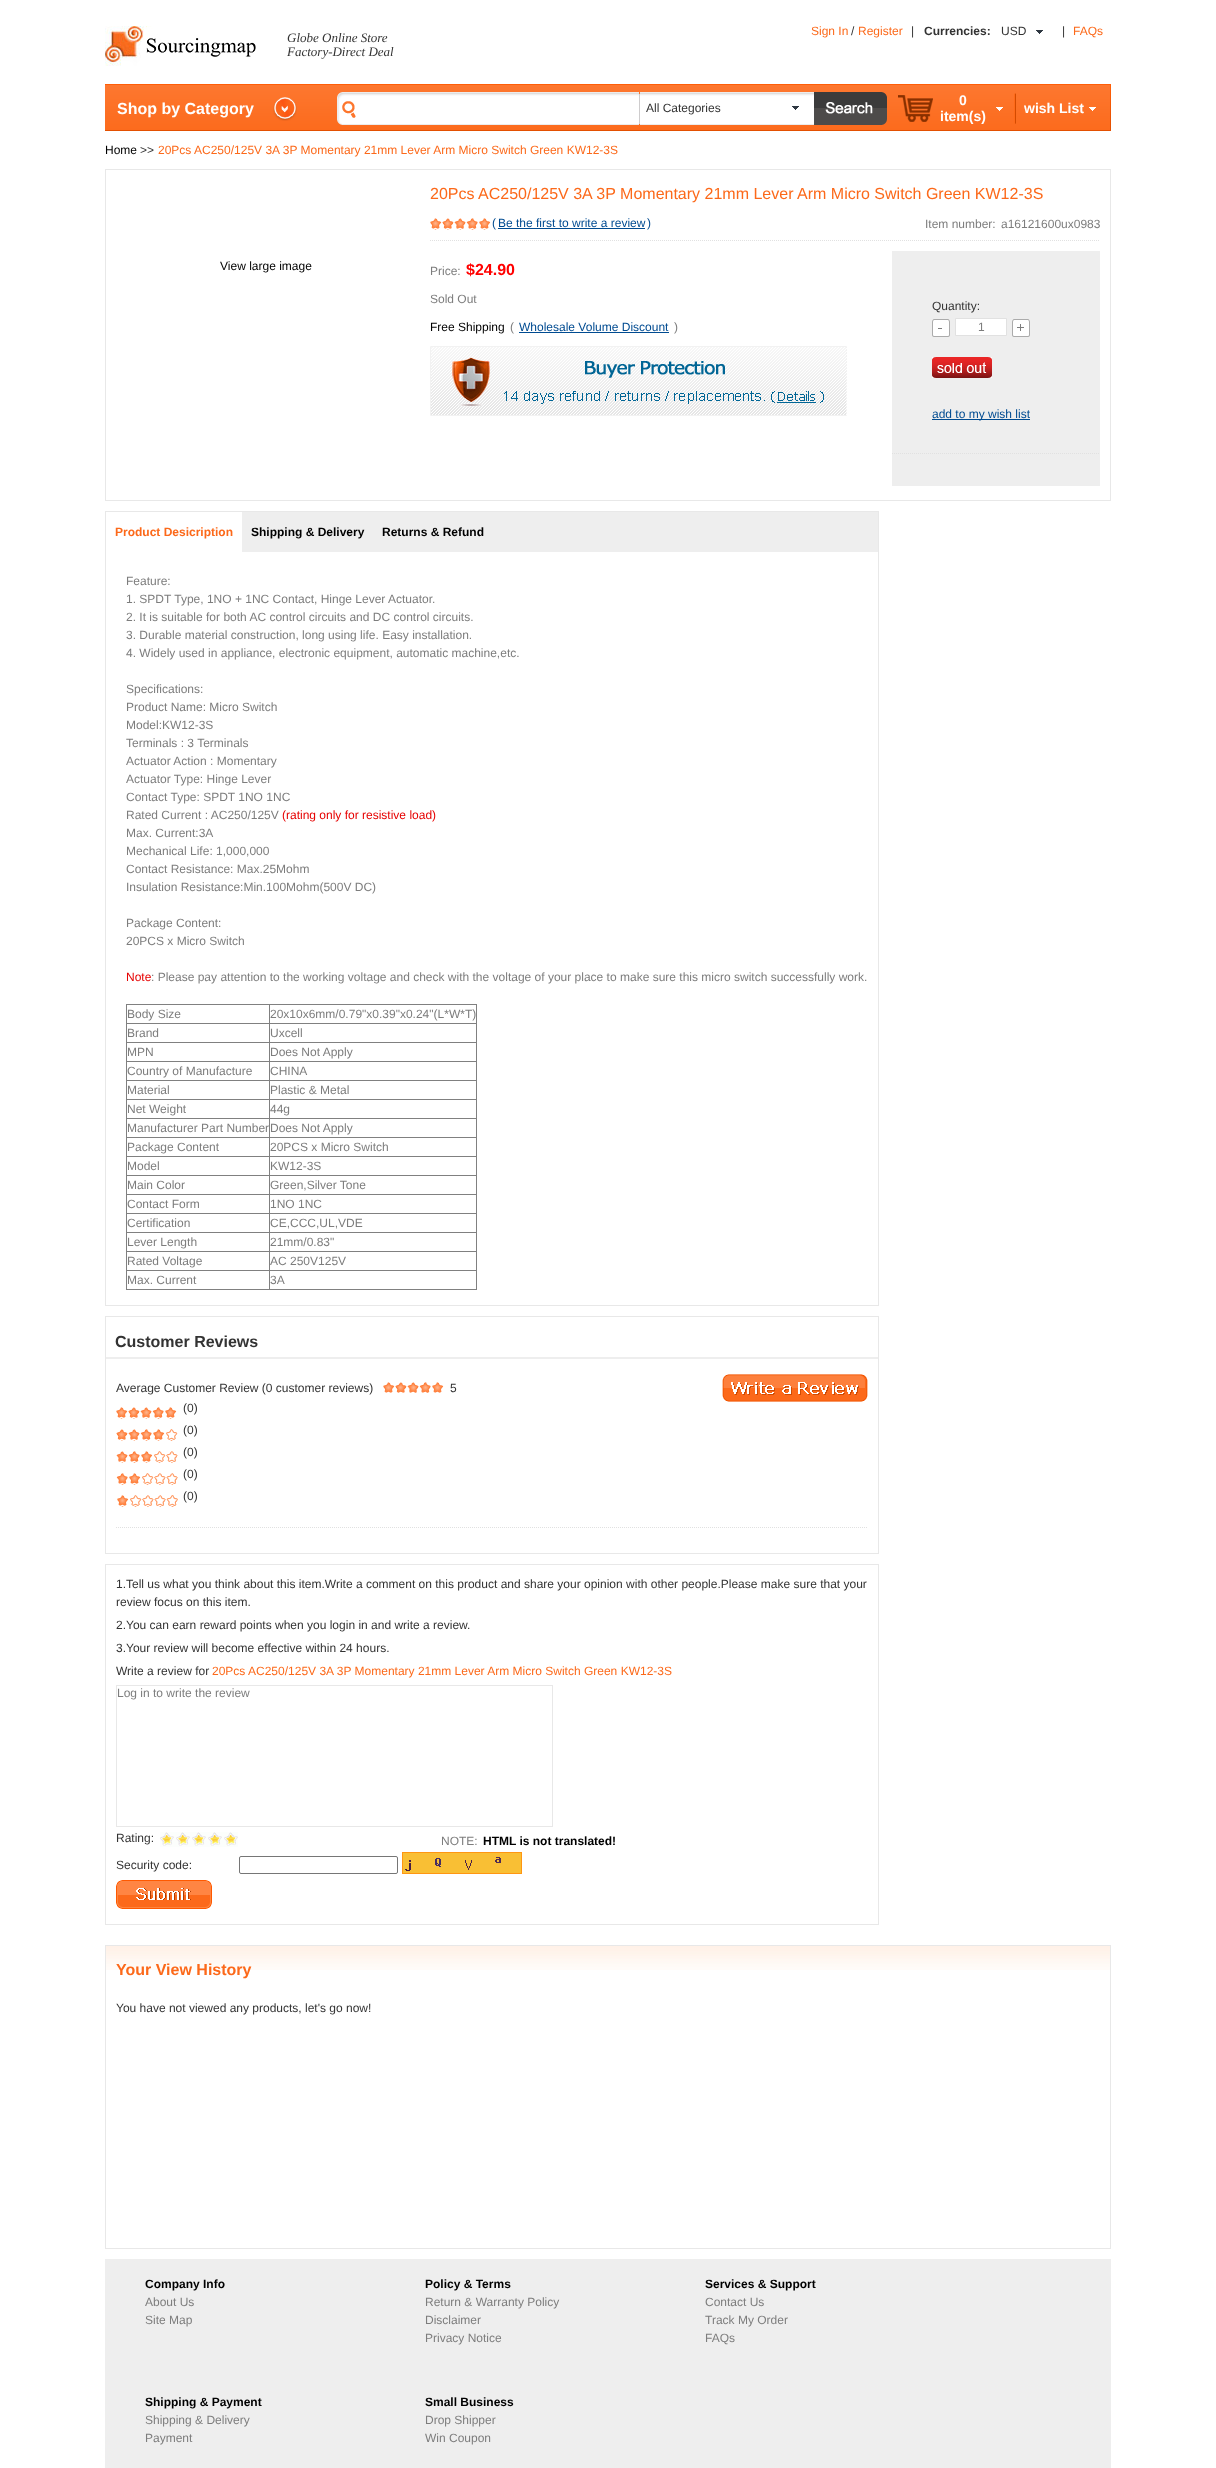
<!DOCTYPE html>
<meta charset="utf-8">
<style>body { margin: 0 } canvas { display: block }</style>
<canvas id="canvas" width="1216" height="2468"></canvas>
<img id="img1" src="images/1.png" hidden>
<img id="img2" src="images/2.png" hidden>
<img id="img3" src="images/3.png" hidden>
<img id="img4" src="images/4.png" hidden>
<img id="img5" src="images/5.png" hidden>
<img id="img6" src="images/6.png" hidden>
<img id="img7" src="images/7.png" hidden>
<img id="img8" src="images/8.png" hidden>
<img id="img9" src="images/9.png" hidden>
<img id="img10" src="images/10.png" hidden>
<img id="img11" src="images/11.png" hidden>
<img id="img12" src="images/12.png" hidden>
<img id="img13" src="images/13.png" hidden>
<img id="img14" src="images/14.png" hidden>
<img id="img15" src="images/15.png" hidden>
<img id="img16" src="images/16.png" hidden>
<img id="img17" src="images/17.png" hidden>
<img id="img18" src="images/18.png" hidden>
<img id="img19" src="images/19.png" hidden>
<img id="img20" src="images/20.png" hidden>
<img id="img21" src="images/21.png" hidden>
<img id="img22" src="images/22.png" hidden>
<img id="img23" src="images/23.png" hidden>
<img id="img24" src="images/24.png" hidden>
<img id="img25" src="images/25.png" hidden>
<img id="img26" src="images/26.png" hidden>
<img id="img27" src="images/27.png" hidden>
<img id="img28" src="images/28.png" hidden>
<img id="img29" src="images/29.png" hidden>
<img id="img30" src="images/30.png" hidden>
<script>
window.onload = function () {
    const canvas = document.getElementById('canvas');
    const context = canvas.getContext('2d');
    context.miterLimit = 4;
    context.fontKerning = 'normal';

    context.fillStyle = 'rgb(255, 255, 255)';
    context.fillRect(0, 0, 1216, 2468);
    context.drawImage(document.getElementById('img1'), 105, 26, 151, 40);
    context.drawImage(document.getElementById('img2'), 1036, 30, 7, 4);
    context.drawImage(document.getElementById('img3'), 105, 84, 220, 47);
    context.drawImage(document.getElementById('img4'), 273, 97, 24, 24);
    context.drawImage(document.getElementById('img5'), 325, 84, 568, 47);
    context.drawImage(document.getElementById('img6'), 337, 92, 21, 33);
    context.drawImage(document.getElementById('img7'), 358, 92, 281, 33);
    context.fillStyle = 'rgb(206, 204, 205)';
    context.fillRect(639, 94, 1, 30);
    context.drawImage(document.getElementById('img8'), 640, 92, 142, 33);
    context.drawImage(document.getElementById('img9'), 782, 92, 32, 33);
    context.drawImage(document.getElementById('img2'), 792, 106, 7, 4);
    context.drawImage(document.getElementById('img10'), 814, 92, 73, 33);
    context.drawImage(document.getElementById('img11'), 893, 84, 218, 47);
    context.drawImage(document.getElementById('img12'), 898, 95, 35, 27);
    context.drawImage(document.getElementById('img13'), 996, 107, 7, 4);
    context.drawImage(document.getElementById('img14'), 1014, 93, 2, 31);
    context.drawImage(document.getElementById('img13'), 1089, 107, 7, 4);
    context.drawImage(document.getElementById('img15'), 1110, 85, 1, 45);
    context.strokeStyle = 'rgb(232, 232, 232)';
    context.strokeRect(105.5, 169.5, 1005, 331);
    context.beginPath();
    context.moveTo(430, 240.5);
    context.lineTo(1100, 240.5);
    context.strokeStyle = 'rgb(225, 225, 225)';
    context.setLineDash([1, 1]);
    context.stroke();
    context.drawImage(document.getElementById('img16'), 430, 218, 61, 12);
    context.fillStyle = 'rgb(0, 75, 145)';
    context.fillRect(498, 228, 147, 1);
    context.fillRect(519, 332, 150, 1);
    context.drawImage(document.getElementById('img17'), 430, 346, 417, 70);
    context.fillStyle = 'rgb(238, 238, 238)';
    context.fillRect(892, 251, 208, 235);
    context.beginPath();
    context.moveTo(892, 453.5);
    context.lineTo(1100, 453.5);
    context.stroke();
    context.drawImage(document.getElementById('img18'), 932, 319, 18, 18);
    context.fillStyle = 'rgb(255, 255, 255)';
    context.beginPath();
    context.rect(955.5, 318.5, 51, 17);
    context.fill();
    context.setLineDash([]);
    context.stroke();
    context.drawImage(document.getElementById('img19'), 1012, 319, 18, 18);
    context.drawImage(document.getElementById('img20'), 932, 357, 60, 21);
    context.fillStyle = 'rgb(0, 75, 145)';
    context.fillRect(932, 419, 98, 1);
    context.strokeStyle = 'rgb(232, 232, 232)';
    context.strokeRect(105.5, 511.5, 773, 794);
    context.fillStyle = 'rgb(238, 238, 238)';
    context.fillRect(242, 512, 636, 40);
    context.fillStyle = 'rgb(128, 128, 128)';
    context.fillRect(126, 1004, 351, 1);
    context.fillRect(476, 1004, 1, 286);
    context.fillRect(126, 1289, 351, 1);
    context.fillRect(126, 1004, 1, 286);
    context.fillRect(269, 1023, 208, 1);
    context.fillRect(269, 1042, 208, 1);
    context.fillRect(269, 1061, 208, 1);
    context.fillRect(269, 1080, 208, 1);
    context.fillRect(269, 1099, 208, 1);
    context.fillRect(269, 1118, 208, 1);
    context.fillRect(269, 1137, 208, 1);
    context.fillRect(269, 1156, 208, 1);
    context.fillRect(269, 1175, 208, 1);
    context.fillRect(269, 1194, 208, 1);
    context.fillRect(269, 1213, 208, 1);
    context.fillRect(269, 1232, 208, 1);
    context.fillRect(269, 1251, 208, 1);
    context.fillRect(269, 1270, 208, 1);
    context.fillRect(269, 1270, 1, 20);
    context.fillRect(126, 1270, 144, 1);
    context.fillRect(269, 1251, 1, 20);
    context.fillRect(126, 1251, 144, 1);
    context.fillRect(269, 1232, 1, 20);
    context.fillRect(126, 1232, 144, 1);
    context.fillRect(269, 1213, 1, 20);
    context.fillRect(126, 1213, 144, 1);
    context.fillRect(269, 1194, 1, 20);
    context.fillRect(126, 1194, 144, 1);
    context.fillRect(269, 1175, 1, 20);
    context.fillRect(126, 1175, 144, 1);
    context.fillRect(269, 1156, 1, 20);
    context.fillRect(126, 1156, 144, 1);
    context.fillRect(269, 1137, 1, 20);
    context.fillRect(126, 1137, 144, 1);
    context.fillRect(269, 1118, 1, 20);
    context.fillRect(126, 1118, 144, 1);
    context.fillRect(269, 1099, 1, 20);
    context.fillRect(126, 1099, 144, 1);
    context.fillRect(269, 1080, 1, 20);
    context.fillRect(126, 1080, 144, 1);
    context.fillRect(269, 1061, 1, 20);
    context.fillRect(126, 1061, 144, 1);
    context.fillRect(269, 1042, 1, 20);
    context.fillRect(126, 1042, 144, 1);
    context.fillRect(269, 1023, 1, 20);
    context.fillRect(126, 1023, 144, 1);
    context.fillRect(269, 1004, 1, 20);
    context.strokeRect(105.5, 1316.5, 773, 237);
    context.fillStyle = 'rgb(238, 238, 238)';
    context.fillRect(106, 1357, 772, 2);
    context.beginPath();
    context.moveTo(116, 1527.5);
    context.lineTo(868, 1527.5);
    context.strokeStyle = 'rgb(225, 225, 225)';
    context.setLineDash([1, 1]);
    context.stroke();
    context.drawImage(document.getElementById('img21'), 383, 1382, 61, 11);
    context.drawImage(document.getElementById('img22'), 722, 1374, 146, 28);
    context.drawImage(document.getElementById('img16'), 116, 1407, 61, 12);
    context.drawImage(document.getElementById('img23'), 116, 1429, 62, 12);
    context.drawImage(document.getElementById('img24'), 116, 1451, 62, 12);
    context.drawImage(document.getElementById('img25'), 116, 1473, 62, 12);
    context.drawImage(document.getElementById('img26'), 117, 1495, 61, 12);
    context.strokeStyle = 'rgb(232, 232, 232)';
    context.setLineDash([]);
    context.strokeRect(105.5, 1564.5, 773, 360);
    context.strokeRect(116.5, 1685.5, 436, 141);
    context.drawImage(document.getElementById('img27'), 160, 1832, 78, 15);
    context.beginPath();
    context.roundRect(239.5, 1856.5, 158, 17, 1.5);
    context.strokeStyle = 'rgb(118, 118, 118)';
    context.stroke();
    context.drawImage(document.getElementById('img28'), 402, 1852, 120, 22);
    context.drawImage(document.getElementById('img29'), 116, 1880, 96, 29);
    context.drawImage(document.getElementById('img30'), 106, 1946, 1004, 24);
    context.strokeStyle = 'rgb(232, 232, 232)';
    context.strokeRect(105.5, 1945.5, 1005, 303);
    context.fillRect(105, 2259, 1006, 209);
    context.font = 'italic 13px Liberation Serif';
    context.fillStyle = 'rgb(51, 51, 51)';
    context.fillText('Globe Online Store', 287, 42);
    context.fillText('Factory-Direct Deal', 287, 56);
    context.font = '12px Liberation Sans';
    context.fillStyle = 'rgb(252, 105, 26)';
    context.fillText('Sign In', 811, 35);
    context.fillStyle = 'rgb(51, 51, 51)';
    context.fillText('/', 851, 35);
    context.fillStyle = 'rgb(252, 105, 26)';
    context.fillText('Register', 858, 35);
    context.fillStyle = 'rgb(51, 51, 51)';
    context.fillText('|', 911, 35);
    context.font = 'bold 12px Liberation Sans';
    context.fillText('Currencies:', 924, 35);
    context.font = '12px Liberation Sans';
    context.fillText('USD', 1001, 35);
    context.fillText('|', 1062, 35);
    context.fillStyle = 'rgb(252, 105, 26)';
    context.fillText('FAQs', 1073, 35);
    context.font = 'bold 16px Liberation Sans';
    context.fillStyle = 'rgb(255, 255, 255)';
    context.fillText('Shop by Category', 117, 114);
    context.font = '12px Liberation Sans';
    context.fillStyle = 'rgb(51, 51, 51)';
    context.fillText('All Categories', 646, 112);
    context.font = 'bold 14px Liberation Sans';
    context.fillStyle = 'rgb(255, 255, 255)';
    context.fillText('0', 959, 105);
    context.fillText('item(s)', 940, 121);
    context.fillText('wish List', 1024, 113);
    context.font = '12px Liberation Sans';
    context.fillStyle = 'rgb(0, 0, 0)';
    context.fillText('Home', 105, 154);
    context.fillStyle = 'rgb(51, 51, 51)';
    context.fillText('>>', 140, 154);
    context.fillStyle = 'rgb(252, 105, 26)';
    context.fillText('20Pcs AC250/125V 3A 3P Momentary 21mm Lever Arm Micro Switch Green KW12-3S', 158, 154);
    context.fillStyle = 'rgb(0, 0, 0)';
    context.fillText('View large image', 220, 270);
    context.font = '16px Liberation Sans';
    context.fillStyle = 'rgb(252, 105, 26)';
    context.fillText('20Pcs AC250/125V 3A 3P Momentary 21mm Lever Arm Micro Switch Green KW12-3S', 430, 199);
    context.font = '12px Liberation Sans';
    context.fillStyle = 'rgb(0, 75, 145)';
    context.fillText('(', 492, 227);
    context.fillText('Be the first to write a review', 498, 227);
    context.fillText(')', 647, 227);
    context.fillStyle = 'rgb(125, 125, 125)';
    context.fillText('Item number:', 925, 228);
    context.fillText('a16121600ux0983', 1001, 228);
    context.fillText('Price:', 430, 275);
    context.font = 'bold 16px Liberation Sans';
    context.fillStyle = 'rgb(255, 0, 0)';
    context.fillText('$24.90', 466, 275);
    context.font = '12px Liberation Sans';
    context.fillStyle = 'rgb(125, 125, 125)';
    context.fillText('Sold Out', 430, 303);
    context.fillStyle = 'rgb(0, 0, 0)';
    context.fillText('Free Shipping', 430, 331);
    context.fillStyle = 'rgb(125, 125, 125)';
    context.fillText('(', 510, 331);
    context.fillStyle = 'rgb(0, 75, 145)';
    context.fillText('Wholesale Volume Discount', 519, 331);
    context.fillStyle = 'rgb(125, 125, 125)';
    context.fillText(')', 674, 331);
    context.fillStyle = 'rgb(51, 51, 51)';
    context.fillText('Quantity:', 932, 310);
    context.fillStyle = 'rgb(125, 125, 125)';
    context.fillText('1', 978, 331);
    context.fillStyle = 'rgb(0, 75, 145)';
    context.fillText('add to my wish list', 932, 418);
    context.font = 'bold 12px Liberation Sans';
    context.fillStyle = 'rgb(252, 105, 26)';
    context.fillText('Product Desicription', 115, 536);
    context.fillStyle = 'rgb(0, 0, 0)';
    context.fillText('Shipping & Delivery', 251, 536);
    context.fillText('Returns & Refund', 382, 536);
    context.font = '12px Liberation Sans';
    context.fillStyle = 'rgb(125, 125, 125)';
    context.fillText('Feature:', 126, 585);
    context.fillText('1. SPDT Type, 1NO + 1NC Contact, Hinge Lever Actuator.', 126, 603);
    context.fillText('2. It is suitable for both AC control circuits and DC control circuits.', 126, 621);
    context.fillText('3. Durable material construction, long using life. Easy installation.', 126, 639);
    context.fillText('4. Widely used in appliance, electronic equipment, automatic machine,etc.', 126, 657);
    context.fillText('Specifications:', 126, 693);
    context.fillText('Product Name: Micro Switch', 126, 711);
    context.fillText('Model:KW12-3S', 126, 729);
    context.fillText('Terminals : 3 Terminals', 126, 747);
    context.fillText('Actuator Action : Momentary', 126, 765);
    context.fillText('Actuator Type: Hinge Lever', 126, 783);
    context.fillText('Contact Type: SPDT 1NO 1NC', 126, 801);
    context.fillText('Rated Current : AC250/125V', 126, 819);
    context.fillStyle = 'rgb(230, 0, 0)';
    context.fillText('(rating only for resistive load)', 282, 819);
    context.fillStyle = 'rgb(125, 125, 125)';
    context.fillText('Max. Current:3A', 126, 837);
    context.fillText('Mechanical Life: 1,000,000', 126, 855);
    context.fillText('Contact Resistance: Max.25Mohm', 126, 873);
    context.fillText('Insulation Resistance:Min.100Mohm(500V DC)', 126, 891);
    context.fillText('Package Content:', 126, 927);
    context.fillText('20PCS x Micro Switch', 126, 945);
    context.fillStyle = 'rgb(230, 0, 0)';
    context.fillText('Note', 126, 981);
    context.fillStyle = 'rgb(125, 125, 125)';
    context.fillText(': Please pay attention to the working voltage and check with the voltage of your place to make sure this micro switch successfully work.', 151, 981);
    context.fillText('Body Size', 127, 1018);
    context.fillText('20x10x6mm/0.79"x0.39"x0.24"(L*W*T)', 270, 1018);
    context.fillText('Brand', 127, 1037);
    context.fillText('Uxcell', 270, 1037);
    context.fillText('MPN', 127, 1056);
    context.fillText('Does Not Apply', 270, 1056);
    context.fillText('Country of Manufacture', 127, 1075);
    context.fillText('CHINA', 270, 1075);
    context.fillText('Material', 127, 1094);
    context.fillText('Plastic & Metal', 270, 1094);
    context.fillText('Net Weight', 127, 1113);
    context.fillText('44g', 270, 1113);
    context.fillText('Manufacturer Part Number', 127, 1132);
    context.fillText('Does Not Apply', 270, 1132);
    context.fillText('Package Content', 127, 1151);
    context.fillText('20PCS x Micro Switch', 270, 1151);
    context.fillText('Model', 127, 1170);
    context.fillText('KW12-3S', 270, 1170);
    context.fillText('Main Color', 127, 1189);
    context.fillText('Green,Silver Tone', 270, 1189);
    context.fillText('Contact Form', 127, 1208);
    context.fillText('1NO 1NC', 270, 1208);
    context.fillText('Certification', 127, 1227);
    context.fillText('CE,CCC,UL,VDE', 270, 1227);
    context.fillText('Lever Length', 127, 1246);
    context.fillText('21mm/0.83"', 270, 1246);
    context.fillText('Rated Voltage', 127, 1265);
    context.fillText('AC 250V125V', 270, 1265);
    context.fillText('Max. Current', 127, 1284);
    context.fillText('3A', 270, 1284);
    context.font = 'bold 16px Liberation Sans';
    context.fillStyle = 'rgb(51, 51, 51)';
    context.fillText('Customer Reviews', 115, 1347);
    context.font = '12px Liberation Sans';
    context.fillText('Average Customer Review (0 customer reviews)', 116, 1392);
    context.fillText('5', 450, 1392);
    context.fillText('(0)', 183, 1412);
    context.fillText('(0)', 183, 1434);
    context.fillText('(0)', 183, 1456);
    context.fillText('(0)', 183, 1478);
    context.fillText('(0)', 183, 1500);
    context.fillText('1.Tell us what you think about this item.Write a comment on this product and share your opinion with other people.Please make sure that your', 116, 1588);
    context.fillText('review focus on this item.', 116, 1606);
    context.fillText('2.You can earn reward points when you login in and write a review.', 116, 1629);
    context.fillText('3.Your review will become effective within 24 hours.', 116, 1652);
    context.fillText('Write a review for', 116, 1675);
    context.fillStyle = 'rgb(252, 105, 26)';
    context.fillText('20Pcs AC250/125V 3A 3P Momentary 21mm Lever Arm Micro Switch Green KW12-3S', 212, 1675);
    context.fillStyle = 'rgb(125, 125, 125)';
    context.fillText('Log in to write the review', 117, 1697);
    context.fillStyle = 'rgb(51, 51, 51)';
    context.fillText('Rating:', 116, 1842);
    context.fillStyle = 'rgb(125, 125, 125)';
    context.fillText('NOTE:', 441, 1845);
    context.font = 'bold 12px Liberation Sans';
    context.fillStyle = 'rgb(0, 0, 0)';
    context.fillText('HTML is not translated!', 483, 1845);
    context.font = '12px Liberation Sans';
    context.fillStyle = 'rgb(51, 51, 51)';
    context.fillText('Security code:', 116, 1869);
    context.font = 'bold 16px Liberation Sans';
    context.fillStyle = 'rgb(252, 105, 26)';
    context.fillText('Your View History', 116, 1975);
    context.font = '12px Liberation Sans';
    context.fillStyle = 'rgb(51, 51, 51)';
    context.fillText('You have not viewed any products, let\'s go now!', 116, 2012);
    context.font = 'bold 12px Liberation Sans';
    context.fillStyle = 'rgb(0, 0, 0)';
    context.fillText('Company Info', 145, 2288);
    context.font = '12px Liberation Sans';
    context.fillStyle = 'rgb(125, 125, 125)';
    context.fillText('About Us', 145, 2306);
    context.fillText('Site Map', 145, 2324);
    context.font = 'bold 12px Liberation Sans';
    context.fillStyle = 'rgb(0, 0, 0)';
    context.fillText('Policy & Terms', 425, 2288);
    context.font = '12px Liberation Sans';
    context.fillStyle = 'rgb(125, 125, 125)';
    context.fillText('Return & Warranty Policy', 425, 2306);
    context.fillText('Disclaimer', 425, 2324);
    context.fillText('Privacy Notice', 425, 2342);
    context.font = 'bold 12px Liberation Sans';
    context.fillStyle = 'rgb(0, 0, 0)';
    context.fillText('Services & Support', 705, 2288);
    context.font = '12px Liberation Sans';
    context.fillStyle = 'rgb(125, 125, 125)';
    context.fillText('Contact Us', 705, 2306);
    context.fillText('Track My Order', 705, 2324);
    context.fillText('FAQs', 705, 2342);
    context.font = 'bold 12px Liberation Sans';
    context.fillStyle = 'rgb(0, 0, 0)';
    context.fillText('Shipping & Payment', 145, 2406);
    context.font = '12px Liberation Sans';
    context.fillStyle = 'rgb(125, 125, 125)';
    context.fillText('Shipping & Delivery', 145, 2424);
    context.fillText('Payment', 145, 2442);
    context.font = 'bold 12px Liberation Sans';
    context.fillStyle = 'rgb(0, 0, 0)';
    context.fillText('Small Business', 425, 2406);
    context.font = '12px Liberation Sans';
    context.fillStyle = 'rgb(125, 125, 125)';
    context.fillText('Drop Shipper', 425, 2424);
    context.fillText('Win Coupon', 425, 2442);
};
</script>
